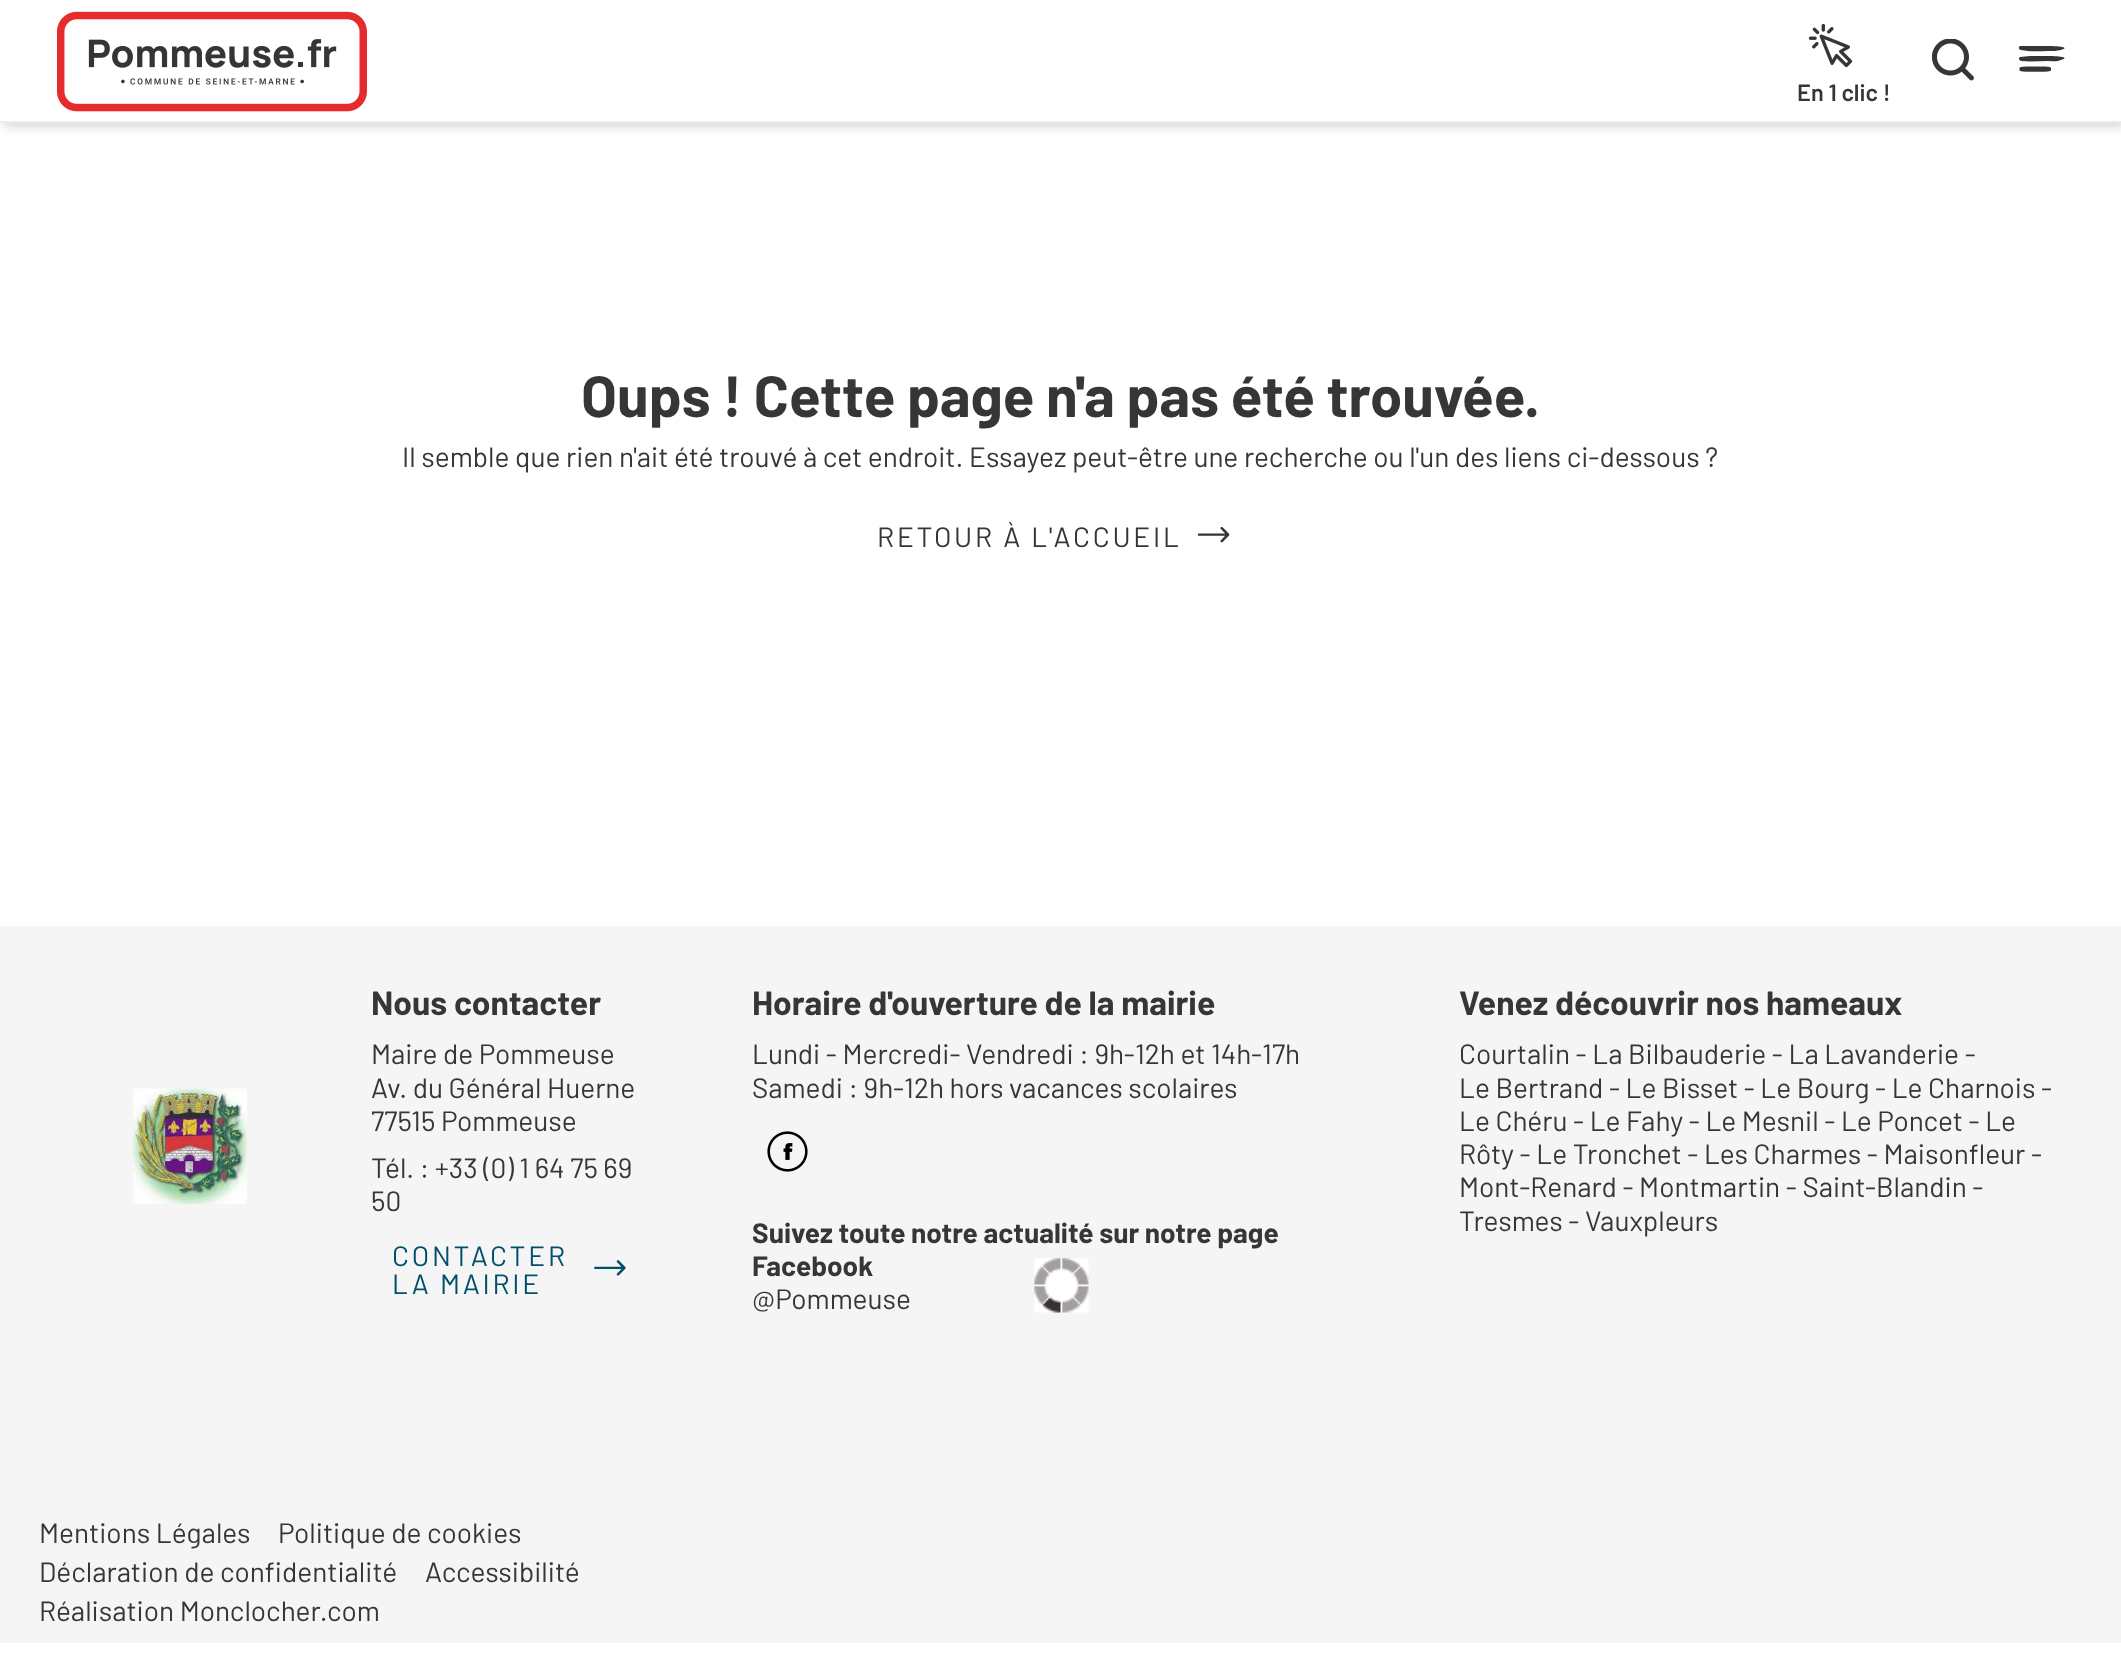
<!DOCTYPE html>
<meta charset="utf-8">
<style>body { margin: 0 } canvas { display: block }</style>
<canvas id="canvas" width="2121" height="1675"></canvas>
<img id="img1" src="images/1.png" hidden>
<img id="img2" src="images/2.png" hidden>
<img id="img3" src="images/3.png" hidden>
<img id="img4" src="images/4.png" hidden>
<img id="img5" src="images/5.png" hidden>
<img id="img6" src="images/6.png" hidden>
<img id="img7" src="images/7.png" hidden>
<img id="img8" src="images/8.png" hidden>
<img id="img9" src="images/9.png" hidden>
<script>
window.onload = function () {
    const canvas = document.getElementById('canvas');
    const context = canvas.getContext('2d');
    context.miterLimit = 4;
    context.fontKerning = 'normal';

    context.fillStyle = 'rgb(255, 255, 255)';
    context.fillRect(0, 0, 2121, 1675);
    context.save();
    context.beginPath();
    context.rect(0, 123, 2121, 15);
    context.clip();
    context.fillStyle = 'rgb(209, 209, 209)';
    context.filter = 'blur(6px)';
    context.beginPath();
    context.rect(4, 4, 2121, 122);
    context.fill();
    context.filter = 'none';
    context.restore();
    context.fillStyle = 'rgb(235, 235, 235)';
    context.fillRect(0, 121, 2121, 2);
    context.drawImage(document.getElementById('img1'), 56, 11, 311, 101);
    context.drawImage(document.getElementById('img2'), 1932, 39, 42, 42);
    context.fillStyle = 'rgb(54, 54, 54)';
    context.beginPath();
    context.moveTo(2030, 56);
    context.lineTo(2044, 56);
    context.bezierCurveTo(2048, 56, 2074, 56, 2061, 60);
    context.bezierCurveTo(2057, 62, 2052, 61, 2048, 61);
    context.bezierCurveTo(2039, 61, 2030, 62, 2021, 61);
    context.bezierCurveTo(2019, 60, 2018, 58, 2020, 57);
    context.closePath();
    context.moveTo(2030, 46);
    context.lineTo(2044, 46);
    context.bezierCurveTo(2048, 46, 2074, 46, 2061, 50);
    context.bezierCurveTo(2057, 51, 2052, 51, 2048, 51);
    context.bezierCurveTo(2039, 51, 2030, 52, 2021, 50);
    context.bezierCurveTo(2019, 50, 2018, 47, 2020, 46);
    context.closePath();
    context.fill();
    context.drawImage(document.getElementById('img3'), 2019, 66, 32, 6);
    context.drawImage(document.getElementById('img4'), 1808, 23, 45, 45);
    context.drawImage(document.getElementById('img5'), 1197, 527, 33, 16);
    context.fillStyle = 'rgb(245, 245, 245)';
    context.fillRect(0, 926, 2121, 717);
    context.drawImage(document.getElementById('img6'), 133, 1088, 114, 116);
    context.drawImage(document.getElementById('img7'), 594, 1260, 32, 16);
    context.drawImage(document.getElementById('img8'), 767, 1131, 41, 41);
    context.drawImage(document.getElementById('img9'), 1034, 1258, 55, 55);
    context.font = '600 23.5px Barlow';
    context.fillStyle = 'rgb(54, 54, 54)';
    context.fillText('En 1 clic !', 1797, 101);
    context.font = 'bold 58px Barlow';
    context.fillText('Oups ! Cette page n\'a pas été trouvée.', 581, 417);
    context.font = '28px Barlow';
    context.fillText('Il semble que rien n\'ait été trouvé à cet endroit. Essayez peut-être une recherche ou l\'un des liens ci-dessous ?', 402, 467);
    context.letterSpacing = '2.75px';
    context.fillText('RETOUR À L\'ACCUEIL', 877, 547);
    context.letterSpacing = '0px';
    context.font = 'bold 33.6px Barlow';
    context.fillText('Nous contacter', 371, 1015);
    context.font = '28px Barlow';
    context.fillText('Maire de Pommeuse', 371, 1064);
    context.fillText('Av. du Général Huerne', 371, 1098);
    context.fillText('77515 Pommeuse', 371, 1131);
    context.fillText('Tél. : +33 (0) 1 64 75 69', 371, 1178);
    context.fillText('50', 371, 1211);
    context.letterSpacing = '2.75px';
    context.fillStyle = 'rgb(0, 79, 107)';
    context.fillText('CONTACTER', 392, 1266);
    context.fillText('LA MAIRIE', 392, 1294);
    context.letterSpacing = '0px';
    context.font = 'bold 33.6px Barlow';
    context.fillStyle = 'rgb(54, 54, 54)';
    context.fillText('Horaire d\'ouverture de la mairie', 752, 1015);
    context.font = '28px Barlow';
    context.fillText('Lundi - Mercredi- Vendredi : 9h-12h et 14h-17h', 752, 1064);
    context.fillText('Samedi : 9h-12h hors vacances scolaires', 752, 1098);
    context.font = 'bold 28px Barlow';
    context.fillText('Suivez toute notre actualité sur notre page', 752, 1243);
    context.fillText('Facebook', 752, 1276);
    context.font = '28px Barlow';
    context.fillText('@Pommeuse', 752, 1309);
    context.font = 'bold 33.6px Barlow';
    context.fillText('Venez découvrir nos hameaux', 1459, 1015);
    context.font = '28px Barlow';
    context.fillText('Courtalin - La Bilbauderie - La Lavanderie -', 1459, 1064);
    context.fillText('Le Bertrand - Le Bisset - Le Bourg - Le Charnois -', 1459, 1098);
    context.fillText('Le Chéru - Le Fahy - Le Mesnil - Le Poncet - Le', 1459, 1131);
    context.fillText('Rôty - Le Tronchet - Les Charmes - Maisonfleur -', 1459, 1164);
    context.fillText('Mont-Renard - Montmartin - Saint-Blandin -', 1459, 1197);
    context.fillText('Tresmes - Vauxpleurs', 1459, 1231);
    context.fillText('Mentions Légales', 39, 1543);
    context.fillText('Politique de cookies', 278, 1543);
    context.fillText('Déclaration de confidentialité', 39, 1582);
    context.fillText('Accessibilité', 425, 1582);
    context.fillText('Réalisation Monclocher.com', 39, 1621);
};
</script>
